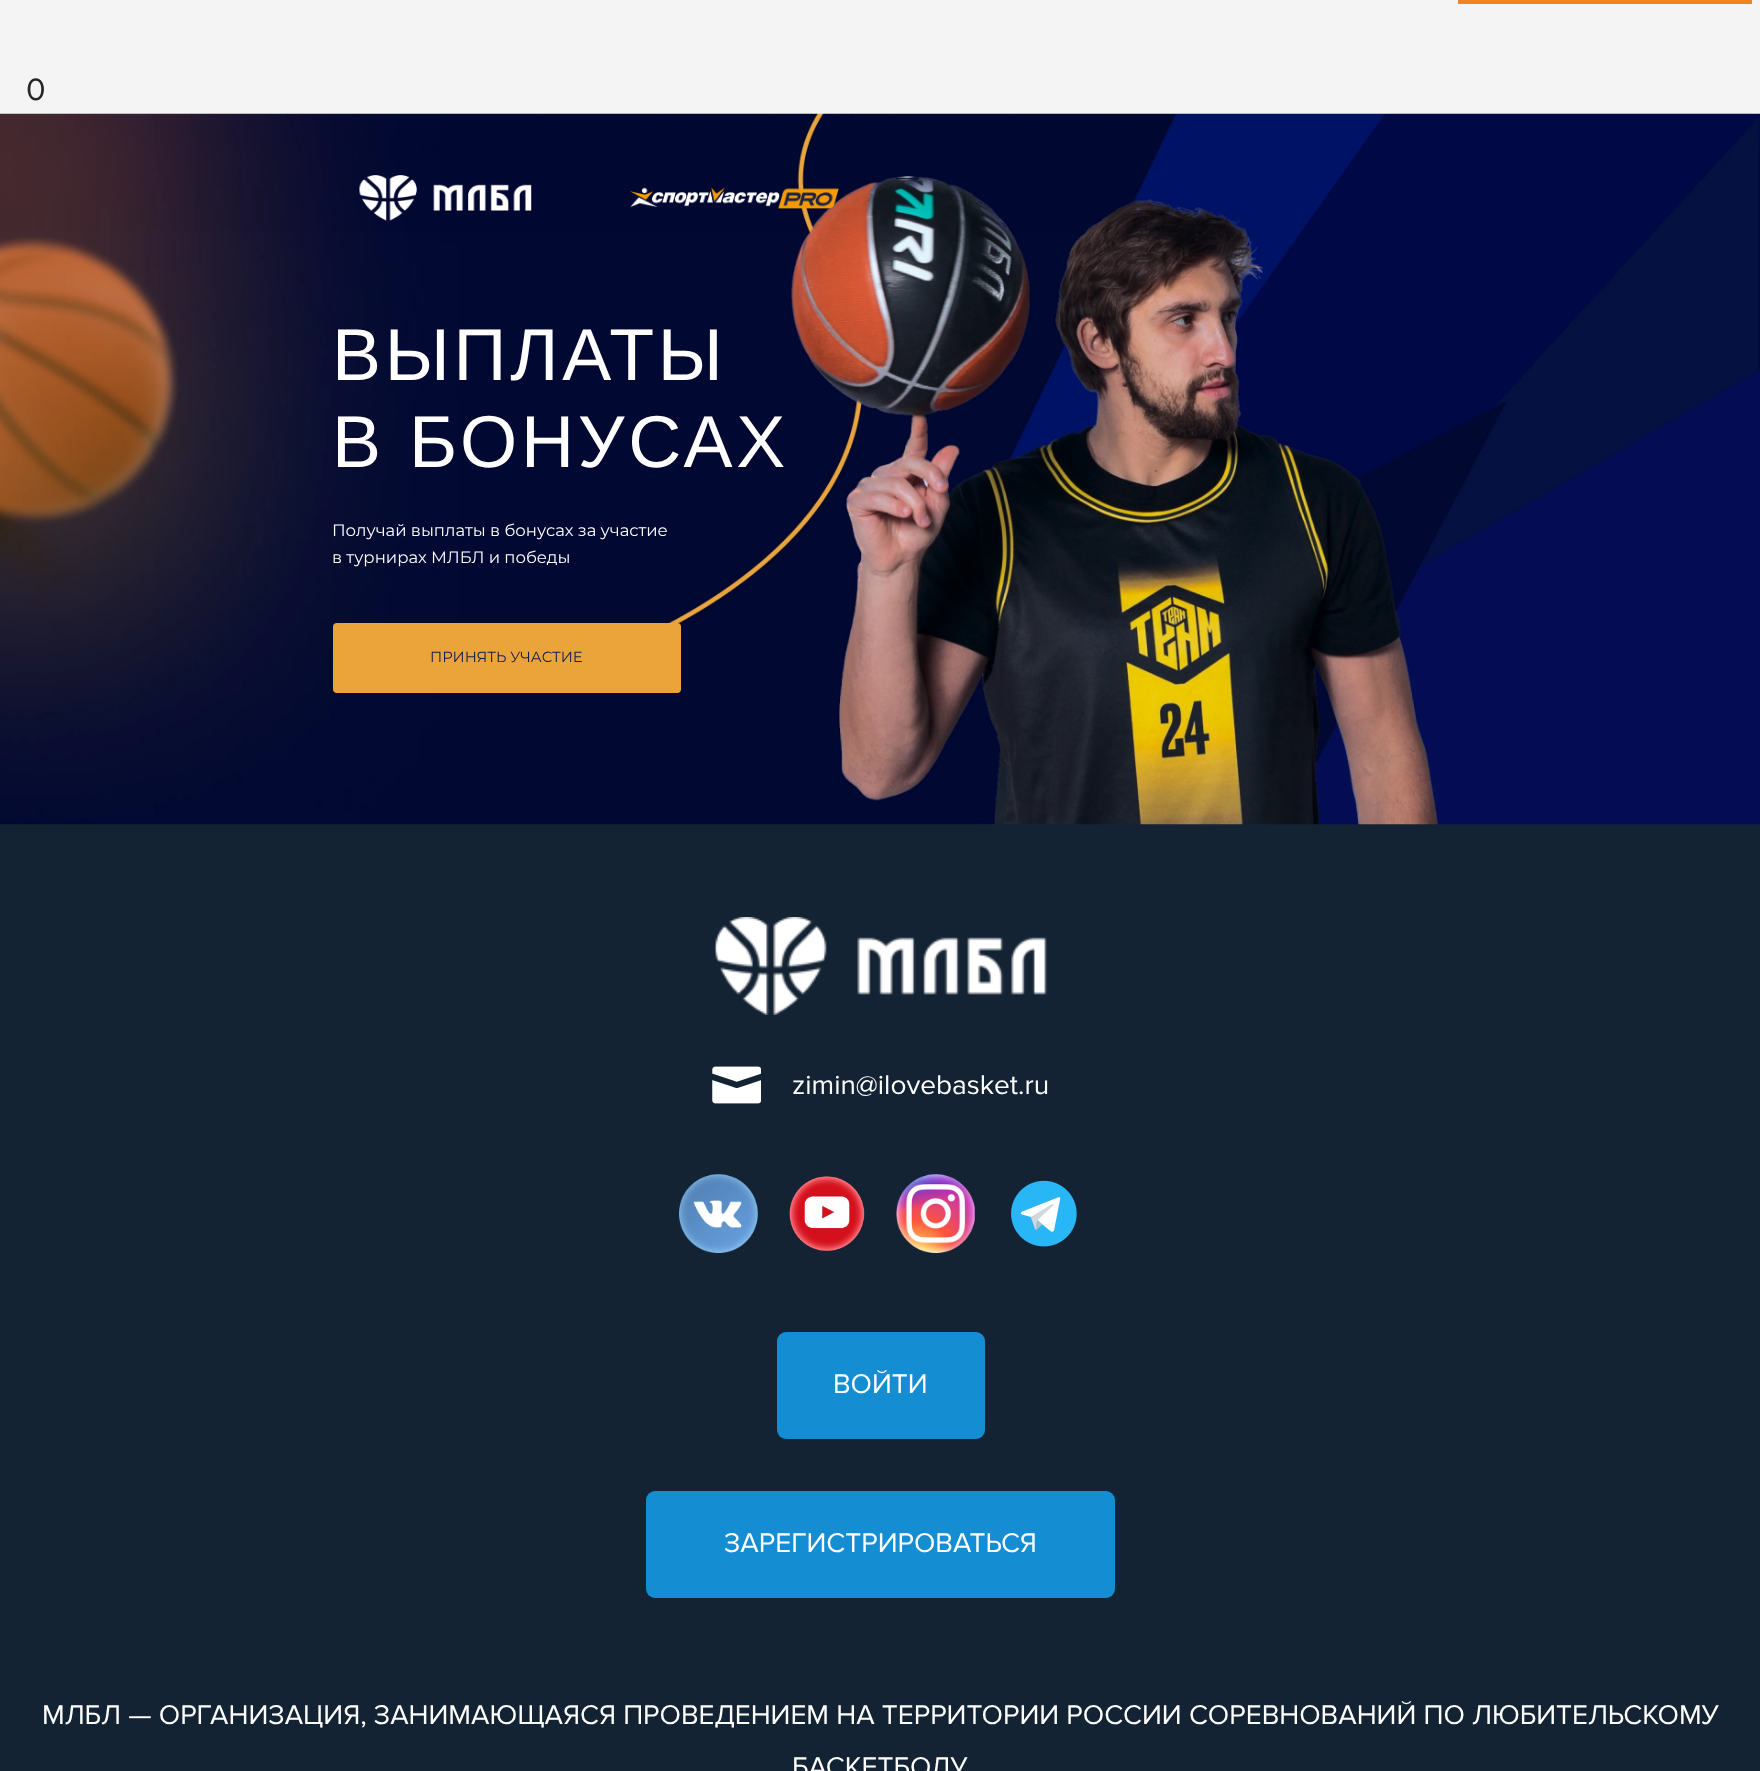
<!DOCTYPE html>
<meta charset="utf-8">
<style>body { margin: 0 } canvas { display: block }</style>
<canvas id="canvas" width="1760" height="1771"></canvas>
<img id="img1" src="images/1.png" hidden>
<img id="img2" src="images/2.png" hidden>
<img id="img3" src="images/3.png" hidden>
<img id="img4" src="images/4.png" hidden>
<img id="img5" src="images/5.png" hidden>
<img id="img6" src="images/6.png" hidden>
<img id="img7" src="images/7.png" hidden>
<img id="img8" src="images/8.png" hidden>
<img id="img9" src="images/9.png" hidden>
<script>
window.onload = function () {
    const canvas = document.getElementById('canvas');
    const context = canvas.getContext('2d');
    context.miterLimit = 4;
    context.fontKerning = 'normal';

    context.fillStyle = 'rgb(20, 35, 51)';
    context.fillRect(0, 0, 1760, 1771);
    context.fillStyle = 'rgb(244, 244, 244)';
    context.fillRect(0, 0, 1760, 114);
    context.fillStyle = 'rgb(241, 132, 31)';
    context.fillRect(1458, 0, 294, 4);
    context.drawImage(document.getElementById('img1'), 0, 113, 1760, 712);
    context.drawImage(document.getElementById('img2'), 359, 175, 173, 46);
    context.drawImage(document.getElementById('img3'), 630, 187, 209, 22);
    context.fillStyle = 'rgb(235, 164, 58)';
    context.beginPath();
    context.roundRect(333, 623, 348, 70, 4);
    context.fill();
    context.drawImage(document.getElementById('img4'), 714, 917, 333, 98);
    context.drawImage(document.getElementById('img5'), 712, 1066, 49, 38);
    context.drawImage(document.getElementById('img6'), 679, 1174, 79, 79);
    context.drawImage(document.getElementById('img7'), 789, 1176, 76, 75);
    context.drawImage(document.getElementById('img8'), 896, 1174, 79, 79);
    context.drawImage(document.getElementById('img9'), 1011, 1180, 66, 67);
    context.fillStyle = 'rgb(20, 141, 211)';
    context.beginPath();
    context.roundRect(777, 1332, 208, 107, 9);
    context.fill();
    context.beginPath();
    context.roundRect(646, 1491, 469, 107, 9);
    context.fill();
    context.font = '32px Proxima Nova';
    context.fillStyle = 'rgb(37, 37, 37)';
    context.fillText('0', 26, 100);
    context.letterSpacing = '3.75px';
    context.font = '73.5px Liberation Sans';
    context.fillStyle = 'rgb(255, 255, 255)';
    context.fillText('ВЫПЛАТЫ', 332, 380);
    context.fillText('В БОНУСАХ', 332, 467);
    context.letterSpacing = '0px';
    context.font = '16.5px Montserrat';
    context.fillText('Получай выплаты в бонусах за участие', 332, 536);
    context.fillText('в турнирах МЛБЛ и победы', 332, 563);
    context.font = '14.75px Montserrat';
    context.fillStyle = 'rgb(18, 29, 75)';
    context.fillText('ПРИНЯТЬ УЧАСТИЕ', 430, 662);
    context.font = '28px Proxima Nova';
    context.fillStyle = 'rgb(255, 255, 255)';
    context.fillText('zimin@ilovebasket.ru', 792, 1094);
    context.fillText('ВОЙТИ', 833, 1393);
    context.fillText('ЗАРЕГИСТРИРОВАТЬСЯ', 724, 1552);
    context.fillText('МЛБЛ — ОРГАНИЗАЦИЯ, ЗАНИМАЮЩАЯСЯ ПРОВЕДЕНИЕМ НА ТЕРРИТОРИИ РОССИИ СОРЕВНОВАНИЙ ПО ЛЮБИТЕЛЬСКОМУ', 42, 1724);
    context.fillText('БАСКЕТБОЛУ', 792, 1776);
};
</script>
